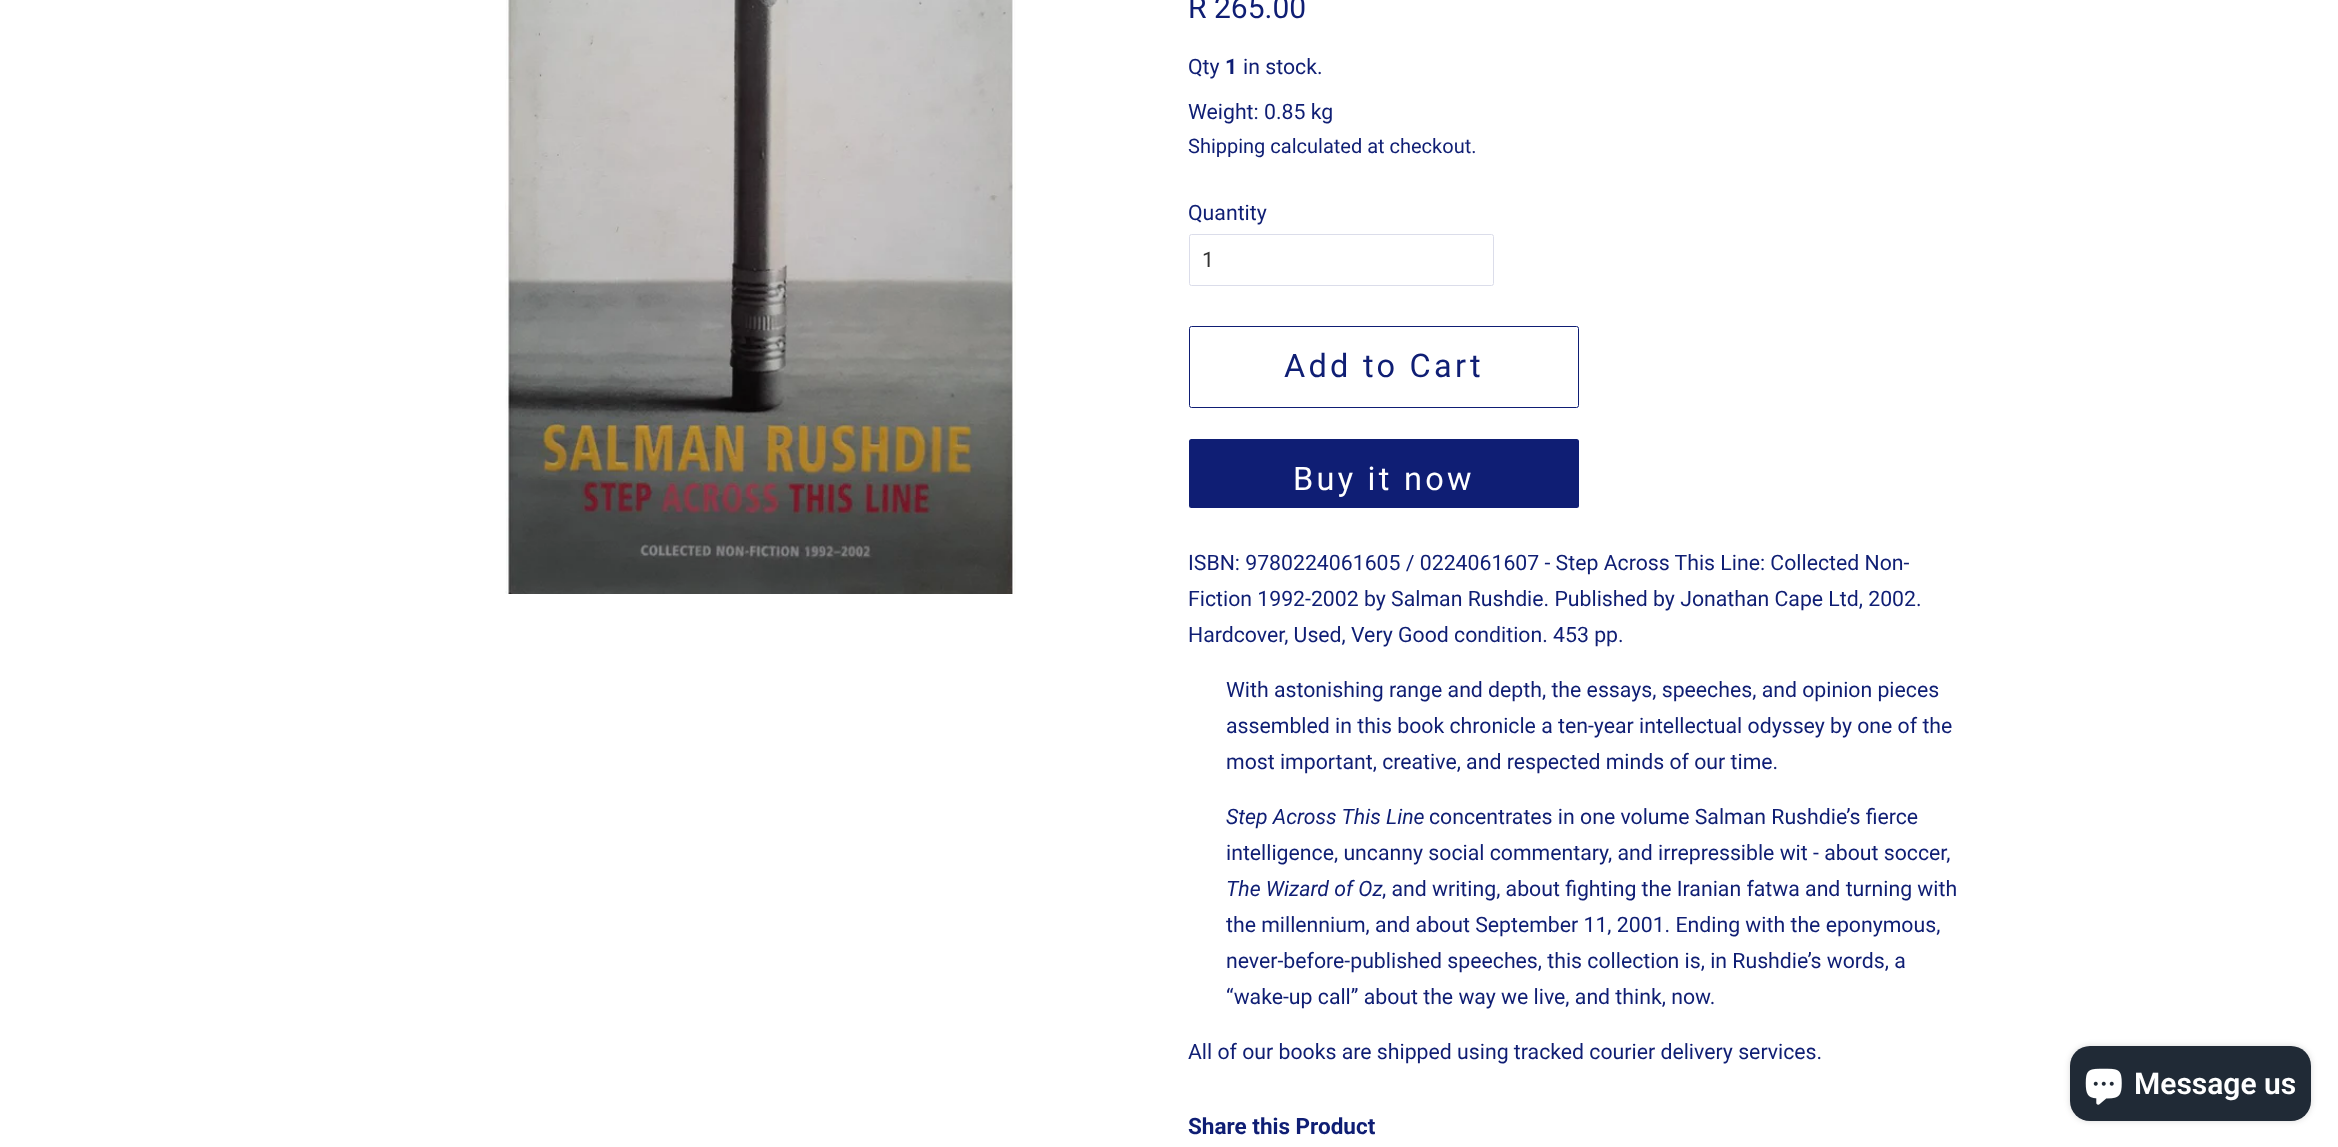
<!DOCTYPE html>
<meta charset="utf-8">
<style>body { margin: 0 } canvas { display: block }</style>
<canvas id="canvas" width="2338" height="1147"></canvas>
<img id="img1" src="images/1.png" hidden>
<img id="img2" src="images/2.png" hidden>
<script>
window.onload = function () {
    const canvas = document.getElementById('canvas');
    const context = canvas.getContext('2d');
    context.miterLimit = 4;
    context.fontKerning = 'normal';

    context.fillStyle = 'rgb(255, 255, 255)';
    context.fillRect(0, 0, 2338, 1147);
    context.drawImage(document.getElementById('img1'), 505, 0, 511, 594);
    context.beginPath();
    context.roundRect(1189.5, 234.5, 304, 51, 2);
    context.strokeStyle = 'rgb(219, 221, 234)';
    context.stroke();
    context.beginPath();
    context.roundRect(1189.5, 326.5, 389, 81, 2);
    context.strokeStyle = 'rgb(15, 30, 116)';
    context.stroke();
    context.fillStyle = 'rgb(15, 30, 116)';
    context.beginPath();
    context.roundRect(1189, 439, 390, 69, 2.5);
    context.fill();
    context.fillStyle = 'rgba(0, 0, 0, 0.15)';
    context.filter = 'blur(3px)';
    context.beginPath();
    context.roundRect(2070, 1046, 241, 75, 20);
    context.fill();
    context.filter = 'none';
    context.fillStyle = 'rgb(32, 42, 54)';
    context.beginPath();
    context.roundRect(2070, 1046, 241, 75, 20);
    context.fill();
    context.drawImage(document.getElementById('img2'), 2085, 1068, 37, 37);
    context.font = '30px Roboto';
    context.fillStyle = 'rgb(15, 30, 116)';
    context.fillText('R 265.00', 1188, 18);
    context.font = '21.25px Roboto';
    context.fillText('Qty', 1188, 74);
    context.font = 'bold 21.25px Roboto';
    context.fillText('1', 1225, 74);
    context.font = '21.25px Roboto';
    context.fillText('in stock.', 1243, 74);
    context.fillText('Weight: 0.85 kg', 1188, 119);
    context.font = '20px Roboto';
    context.fillText('Shipping calculated at checkout.', 1188, 153);
    context.font = '21.25px Roboto';
    context.fillText('Quantity', 1188, 220);
    context.fillStyle = 'rgb(51, 51, 51)';
    context.fillText('1', 1202, 267);
    context.letterSpacing = '3.25px';
    context.font = '32.5px Roboto';
    context.fillStyle = 'rgb(15, 30, 116)';
    context.fillText('Add to Cart', 1284, 377);
    context.fillStyle = 'rgb(255, 255, 255)';
    context.fillText('Buy it now', 1293, 490);
    context.letterSpacing = '0px';
    context.font = '21.25px Roboto';
    context.fillStyle = 'rgb(15, 30, 116)';
    context.fillText('ISBN: 9780224061605 / 0224061607 - Step Across This Line: Collected Non-', 1188, 570);
    context.fillText('Fiction 1992-2002 by Salman Rushdie. Published by Jonathan Cape Ltd, 2002.', 1188, 606);
    context.fillText('Hardcover, Used, Very Good condition. 453 pp.', 1188, 642);
    context.fillText('With astonishing range and depth, the essays, speeches, and opinion pieces', 1226, 697);
    context.fillText('assembled in this book chronicle a ten-year intellectual odyssey by one of the', 1226, 733);
    context.fillText('most important, creative, and respected minds of our time.', 1226, 769);
    context.font = 'italic 21.25px Roboto';
    context.fillText('Step Across This Line', 1226, 824);
    context.font = '21.25px Roboto';
    context.fillText('concentrates in one volume Salman Rushdie’s fierce', 1429, 824);
    context.fillText('intelligence, uncanny social commentary, and irrepressible wit - about soccer,', 1226, 860);
    context.font = 'italic 21.25px Roboto';
    context.fillText('The Wizard of Oz', 1226, 896);
    context.font = '21.25px Roboto';
    context.fillText(', and writing, about fighting the Iranian fatwa and turning with', 1382, 896);
    context.fillText('the millennium, and about September 11, 2001. Ending with the eponymous,', 1226, 932);
    context.fillText('never-before-published speeches, this collection is, in Rushdie’s words, a', 1226, 968);
    context.fillText('“wake-up call” about the way we live, and think, now.', 1226, 1004);
    context.fillText('All of our books are shipped using tracked courier delivery services.', 1188, 1059);
    context.font = 'bold 22.5px Roboto';
    context.fillText('Share this Product', 1188, 1134);
    context.font = '600 30px Roboto';
    context.fillStyle = 'rgb(255, 255, 255)';
    context.fillText('Message us', 2134, 1094);
};
</script>
